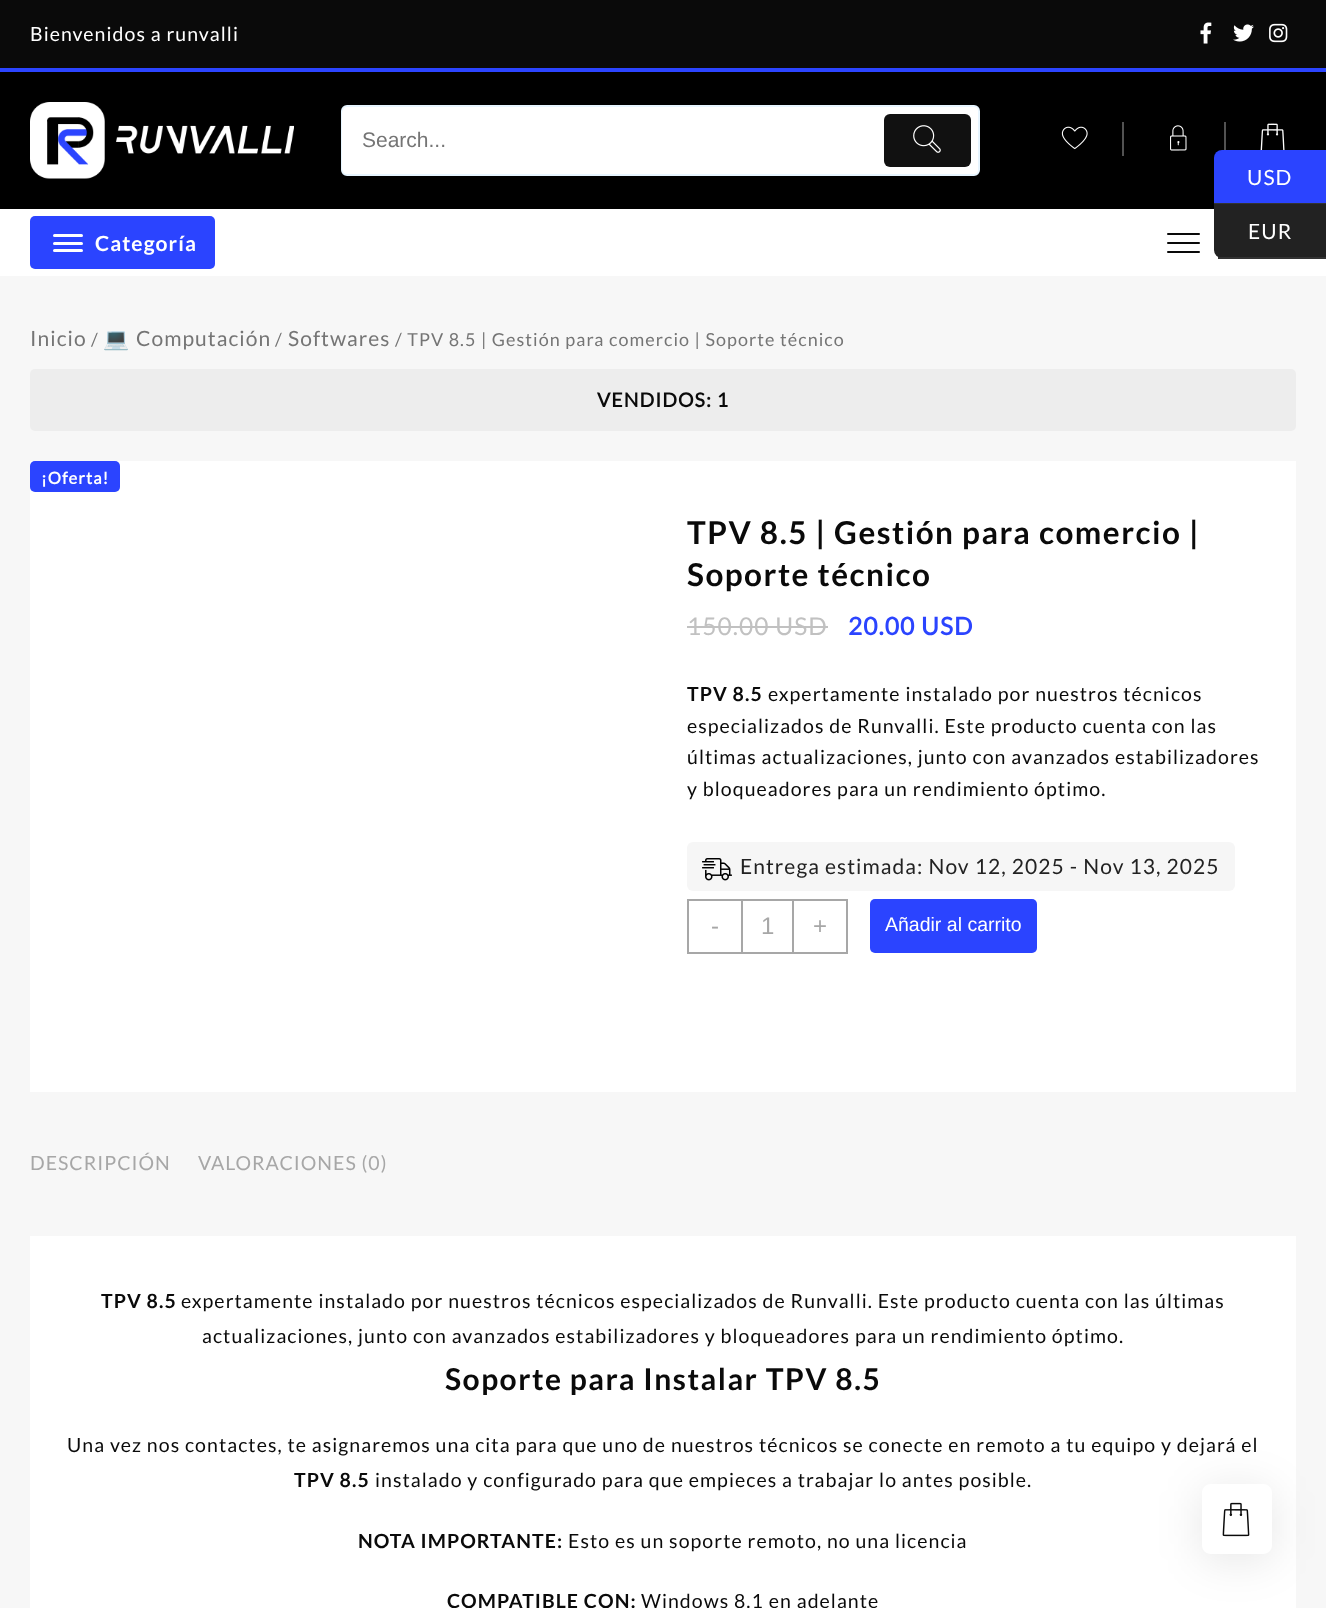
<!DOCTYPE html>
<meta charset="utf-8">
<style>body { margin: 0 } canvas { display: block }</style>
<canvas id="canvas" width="1326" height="1608"></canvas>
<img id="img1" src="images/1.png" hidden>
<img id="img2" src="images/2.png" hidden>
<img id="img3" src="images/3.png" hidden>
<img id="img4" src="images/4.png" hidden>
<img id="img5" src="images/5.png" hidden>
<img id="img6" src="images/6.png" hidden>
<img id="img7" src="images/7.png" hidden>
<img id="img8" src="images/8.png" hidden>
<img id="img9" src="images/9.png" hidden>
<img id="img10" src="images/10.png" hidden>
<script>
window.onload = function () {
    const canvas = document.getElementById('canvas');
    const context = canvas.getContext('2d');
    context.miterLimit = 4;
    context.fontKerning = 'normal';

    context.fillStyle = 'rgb(247, 247, 247)';
    context.fillRect(0, 0, 1326, 1608);
    context.fillStyle = 'rgb(43, 68, 255)';
    context.fillRect(0, 68, 1326, 4);
    context.fillStyle = 'rgb(10, 10, 10)';
    context.fillRect(0, 0, 1326, 68);
    context.drawImage(document.getElementById('img1'), 1200, 22, 12, 22);
    context.drawImage(document.getElementById('img2'), 1233, 24, 21, 18);
    context.drawImage(document.getElementById('img3'), 1269, 23, 19, 20);
    context.fillStyle = 'rgb(0, 0, 0)';
    context.fillRect(0, 72, 1326, 137);
    context.drawImage(document.getElementById('img4'), 30, 102, 264, 77);
    context.fillStyle = 'rgb(255, 255, 255)';
    context.beginPath();
    context.roundRect(342, 106, 637, 69, 5);
    context.fill();
    context.strokeStyle = 'rgb(231, 245, 255)';
    context.lineWidth = 2;
    context.stroke();
    context.beginPath();
    context.roundRect(342, 107, 534, 67, 6);
    context.fill();
    context.fillStyle = 'rgb(17, 17, 17)';
    context.beginPath();
    context.roundRect(884, 114, 87, 53, 6);
    context.fill();
    context.drawImage(document.getElementById('img5'), 913, 125, 28, 28);
    context.drawImage(document.getElementById('img6'), 1061, 126, 27, 24);
    context.fillStyle = 'rgb(82, 82, 82)';
    context.fillRect(1122, 122, 2, 34);
    context.drawImage(document.getElementById('img7'), 1170, 125, 17, 26);
    context.fillRect(1224, 122, 2, 34);
    context.drawImage(document.getElementById('img8'), 1260, 123, 25, 27);
    context.fillStyle = 'rgb(255, 255, 255)';
    context.fillRect(0, 209, 1326, 67);
    context.fillStyle = 'rgb(43, 68, 255)';
    context.beginPath();
    context.roundRect(30, 216, 185, 53, 5);
    context.fill();
    context.fillStyle = 'rgb(255, 255, 255)';
    context.beginPath();
    context.roundRect(53, 234, 30, 3, 1.5);
    context.fill();
    context.beginPath();
    context.roundRect(53, 242, 30, 3, 1.5);
    context.fill();
    context.beginPath();
    context.roundRect(53, 249, 30, 3, 1.5);
    context.fill();
    context.fillStyle = 'rgb(9, 9, 9)';
    context.beginPath();
    context.roundRect(1167, 233, 33, 2, 1);
    context.fill();
    context.beginPath();
    context.roundRect(1167, 242, 33, 2, 1);
    context.fill();
    context.beginPath();
    context.roundRect(1167, 251, 33, 2, 1);
    context.fill();
    context.fillStyle = 'rgb(237, 237, 237)';
    context.beginPath();
    context.roundRect(30, 369, 1266, 62, 5);
    context.fill();
    context.fillStyle = 'rgb(255, 255, 255)';
    context.fillRect(30, 461, 1266, 631);
    context.fillStyle = 'rgb(43, 68, 255)';
    context.beginPath();
    context.roundRect(30, 461, 90, 31, 5);
    context.fill();
    context.fillStyle = 'rgb(193, 193, 193)';
    context.fillRect(687, 626, 141, 2);
    context.fillStyle = 'rgb(246, 246, 246)';
    context.beginPath();
    context.roundRect(687, 842, 548, 49, 6);
    context.fill();
    context.drawImage(document.getElementById('img9'), 702, 858, 30, 23);
    context.strokeStyle = 'rgb(167, 167, 167)';
    context.strokeRect(688, 900, 159, 53);
    context.fillStyle = 'rgb(167, 167, 167)';
    context.fillRect(792, 900, 2, 53);
    context.fillRect(741, 900, 2, 53);
    context.fillStyle = 'rgb(43, 68, 255)';
    context.beginPath();
    context.roundRect(870, 899, 167, 54, 5);
    context.fill();
    context.fillStyle = 'rgb(255, 255, 255)';
    context.fillRect(30, 1236, 1266, 372);
    context.fillStyle = 'rgb(43, 68, 255)';
    context.beginPath();
    context.roundRect(1214, 150, 112, 54, [8, 0, 0, 0]);
    context.fill();
    context.fillStyle = 'rgb(51, 51, 51)';
    context.fillRect(1214, 203, 112, 1);
    context.fillStyle = 'rgb(34, 34, 34)';
    context.beginPath();
    context.roundRect(1214, 204, 112, 54, [0, 0, 0, 8]);
    context.fill();
    context.fillStyle = 'rgb(51, 51, 51)';
    context.fillRect(1218, 257, 108, 2);
    context.save();
    context.beginPath();
    context.moveTo(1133, 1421);
    context.lineTo(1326, 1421);
    context.lineTo(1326, 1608);
    context.lineTo(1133, 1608);
    context.closePath();
    context.moveTo(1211, 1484);
    context.lineTo(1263, 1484);
    context.bezierCurveTo(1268, 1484, 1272, 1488, 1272, 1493);
    context.lineTo(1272, 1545);
    context.bezierCurveTo(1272, 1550, 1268, 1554, 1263, 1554);
    context.lineTo(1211, 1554);
    context.bezierCurveTo(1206, 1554, 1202, 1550, 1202, 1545);
    context.lineTo(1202, 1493);
    context.bezierCurveTo(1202, 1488, 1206, 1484, 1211, 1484);
    context.closePath();
    context.clip('evenodd');
    context.fillStyle = 'rgba(0, 0, 0, 0.1)';
    context.filter = 'blur(22.5px)';
    context.beginPath();
    context.roundRect(1202, 1490, 70, 70, 9);
    context.fill();
    context.filter = 'none';
    context.restore();
    context.drawImage(document.getElementById('img10'), 1222, 1502, 28, 35);
    context.letterSpacing = '1.05px';
    context.font = '19.5px Lato';
    context.fillStyle = 'rgb(255, 255, 255)';
    context.fillText('Bienvenidos a runvalli', 30, 41);
    context.letterSpacing = '0px';
    context.font = '21px Liberation Sans';
    context.fillStyle = 'rgb(117, 117, 117)';
    context.fillText('Search...', 362, 147);
    context.letterSpacing = '1.05px';
    context.font = 'bold 21px Lato';
    context.fillStyle = 'rgb(255, 255, 255)';
    context.fillText('Categoría', 95, 251);
    context.font = '21px Lato';
    context.fillStyle = 'rgb(117, 117, 117)';
    context.fillText('Inicio', 30, 346);
    context.font = '17.95px Lato';
    context.fillText('/', 91, 346);
    context.font = '21px Noto Color Emoji';
    context.fillText('💻', 103, 346);
    context.font = '21px Lato';
    context.fillText('Computación', 136, 346);
    context.font = '17.95px Lato';
    context.fillText('/', 275, 346);
    context.font = '21px Lato';
    context.fillText('Softwares', 288, 346);
    context.font = '17.95px Lato';
    context.fillText('/ TPV 8.5 | Gestión para comercio | Soporte técnico', 395, 346);
    context.font = 'bold 19.5px "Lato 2"';
    context.fillStyle = 'rgb(10, 10, 10)';
    context.fillText('VENDIDOS: 1', 597, 407);
    context.font = 'bold 16.5px "Lato 2"';
    context.fillStyle = 'rgb(255, 255, 255)';
    context.fillText('¡Oferta!', 41, 484);
    context.letterSpacing = '1.5px';
    context.font = 'bold 31.5px Lato';
    context.fillStyle = 'rgb(10, 10, 10)';
    context.fillText('TPV 8.5 | Gestión para comercio |', 687, 544);
    context.fillText('Soporte técnico', 687, 586);
    context.letterSpacing = '1.05px';
    context.font = '24.5px Lato';
    context.fillStyle = 'rgb(193, 193, 193)';
    context.fillText('150.00 USD', 687, 635);
    context.font = 'bold 24.5px "Lato 2"';
    context.fillStyle = 'rgb(43, 68, 255)';
    context.fillText('20.00 USD', 848, 635);
    context.font = 'bold 19.5px Lato';
    context.fillStyle = 'rgb(10, 10, 10)';
    context.fillText('TPV 8.5', 687, 701);
    context.font = '19.5px Lato';
    context.fillText('expertamente instalado por nuestros técnicos', 768, 701);
    context.fillText('especializados de Runvalli. Este producto cuenta con las', 687, 733);
    context.fillText('últimas actualizaciones, junto con avanzados estabilizadores', 687, 764);
    context.fillText('y bloqueadores para un rendimiento óptimo.', 687, 796);
    context.font = '21px Lato';
    context.fillStyle = 'rgb(34, 34, 34)';
    context.fillText('Entrega estimada: Nov 12, 2025 - Nov 13, 2025', 740, 874);
    context.letterSpacing = '0px';
    context.font = '24px Liberation Sans';
    context.fillStyle = 'rgb(167, 167, 167)';
    context.fillText('-', 711, 934);
    context.fillText('1', 761, 934);
    context.fillText('+', 813, 934);
    context.font = '19.5px Liberation Sans';
    context.fillStyle = 'rgb(255, 255, 255)';
    context.fillText('Añadir al carrito', 885, 931);
    context.letterSpacing = '1px';
    context.font = '19.5px Lato';
    context.fillStyle = 'rgb(167, 167, 167)';
    context.fillText('DESCRIPCIÓN', 30, 1170);
    context.fillText('VALORACIONES (0)', 198, 1170);
    context.letterSpacing = '1.05px';
    context.font = 'bold 19.5px Lato';
    context.fillStyle = 'rgb(10, 10, 10)';
    context.fillText('TPV 8.5', 101, 1308);
    context.font = '19.5px Lato';
    context.fillText('expertamente instalado por nuestros técnicos especializados de Runvalli. Este producto cuenta con las últimas', 181, 1308);
    context.fillText('actualizaciones, junto con avanzados estabilizadores y bloqueadores para un rendimiento óptimo.', 202, 1343);
    context.letterSpacing = '1.5px';
    context.font = 'bold 30px Lato';
    context.fillText('Soporte para Instalar TPV 8.5', 445, 1390);
    context.letterSpacing = '1.05px';
    context.font = '19.5px Lato';
    context.fillText('Una vez nos contactes, te asignaremos una cita para que uno de nuestros técnicos se conecte en remoto a tu equipo y dejará el', 67, 1452);
    context.font = 'bold 19.5px Lato';
    context.fillText('TPV 8.5', 294, 1487);
    context.font = '19.5px Lato';
    context.fillText('instalado y configurado para que empieces a trabajar lo antes posible.', 375, 1487);
    context.font = 'bold 19.5px Lato';
    context.fillText('NOTA IMPORTANTE:', 358, 1548);
    context.font = '19.5px Lato';
    context.fillText('Esto es un soporte remoto, no una licencia', 568, 1548);
    context.font = 'bold 19.5px Lato';
    context.fillText('COMPATIBLE CON:', 447, 1608);
    context.font = '19.5px Lato';
    context.fillText('Windows 8.1 en adelante', 641, 1608);
    context.font = '21px Lato';
    context.fillStyle = 'rgb(255, 255, 255)';
    context.fillText('USD', 1247, 185);
    context.fillText('EUR', 1248, 239);
};
</script>
